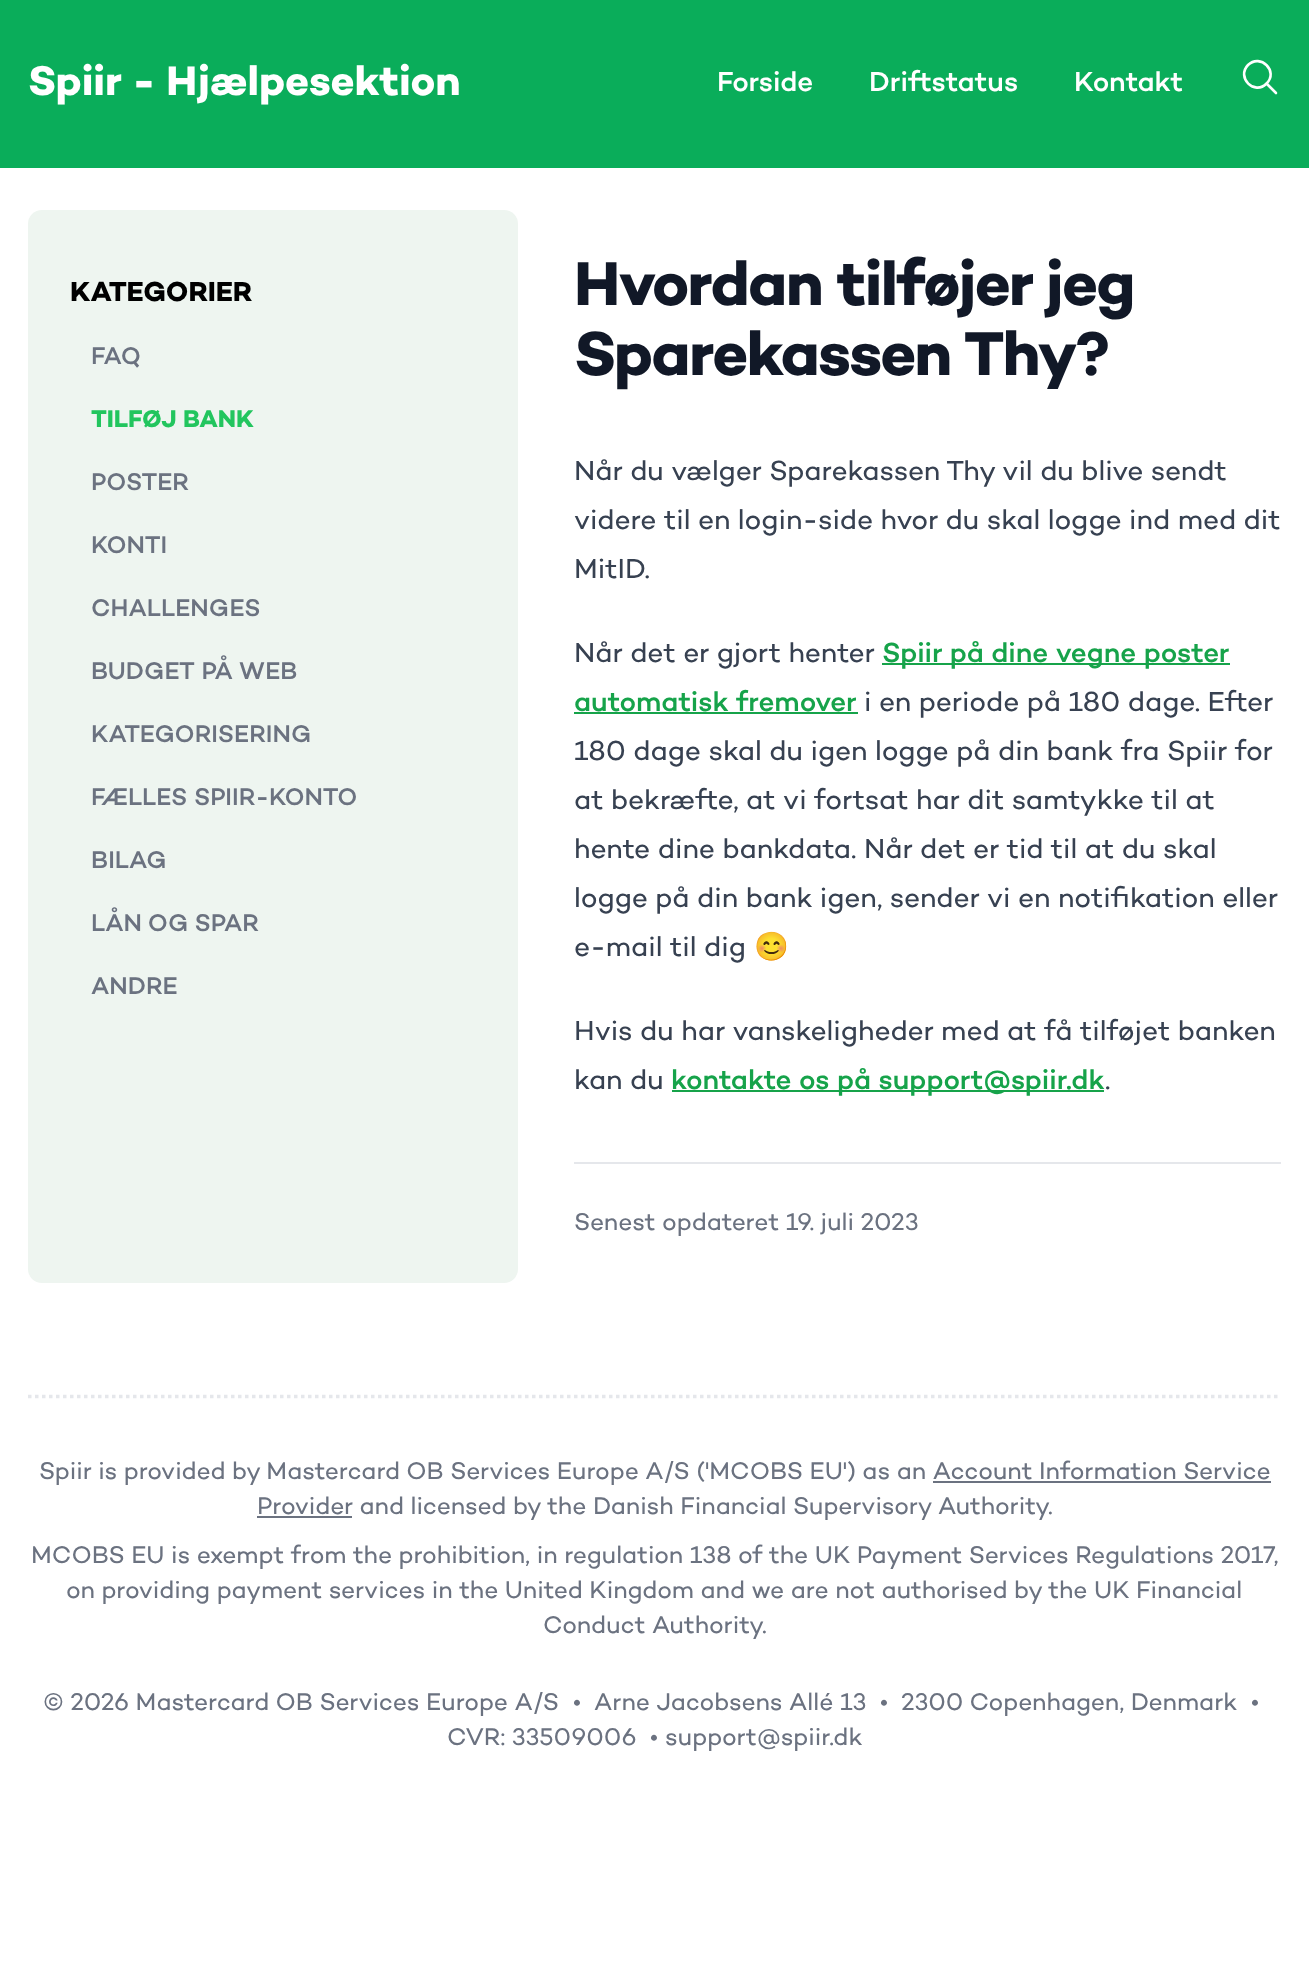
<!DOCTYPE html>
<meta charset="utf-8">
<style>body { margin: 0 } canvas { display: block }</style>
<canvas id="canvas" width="1309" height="1987"></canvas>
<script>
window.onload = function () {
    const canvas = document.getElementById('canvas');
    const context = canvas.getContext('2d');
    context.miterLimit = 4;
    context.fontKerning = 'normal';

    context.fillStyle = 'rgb(255, 255, 255)';
    context.fillRect(0, 0, 1309, 1987);
    context.fillStyle = 'rgb(10, 173, 90)';
    context.fillRect(0, 0, 1309, 168);
    context.beginPath();
    context.moveTo(1276, 93);
    context.lineTo(1266.5, 83.5);
    context.moveTo(1266.5, 83.5);
    context.bezierCurveTo(1279, 71.5, 1260.5, 53, 1248, 65);
    context.bezierCurveTo(1236, 77.5, 1254.5, 96, 1266.5, 83.5);
    context.closePath();
    context.strokeStyle = 'rgb(255, 255, 255)';
    context.lineWidth = 2.6;
    context.lineCap = 'round';
    context.lineJoin = 'round';
    context.stroke();
    context.fillStyle = 'rgb(238, 245, 240)';
    context.beginPath();
    context.roundRect(28, 210, 490, 1073, 14);
    context.fill();
    context.fillStyle = 'rgb(22, 163, 74)';
    context.fillRect(882, 663, 348, 2);
    context.fillRect(574, 712, 284, 2);
    context.fillRect(672, 1090, 432, 2);
    context.fillStyle = 'rgb(229, 231, 235)';
    context.fillRect(574, 1162, 707, 2);
    context.beginPath();
    context.moveTo(28, 1396.5);
    context.lineTo(1281, 1396.5);
    context.strokeStyle = 'rgb(229, 231, 235)';
    context.lineWidth = 3.5;
    context.lineCap = 'butt';
    context.lineJoin = 'miter';
    context.setLineDash([3.5, 3.5]);
    context.stroke();
    context.fillStyle = 'rgb(107, 114, 128)';
    context.fillRect(933, 1481, 338, 2);
    context.fillRect(257, 1516, 95, 2);
    context.font = 'bold 42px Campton';
    context.fillStyle = 'rgb(255, 255, 255)';
    context.fillText('Spiir - Hjælpesektion', 28, 95);
    context.font = '500 28px Campton';
    context.fillText('Forside', 717, 91);
    context.fillText('Driftstatus', 869, 91);
    context.fillText('Kontakt', 1074, 91);
    context.font = 'bold 28px Campton';
    context.fillStyle = 'rgb(0, 0, 0)';
    context.fillText('KATEGORIER', 70, 301);
    context.font = '500 24.5px Campton';
    context.fillStyle = 'rgb(107, 114, 128)';
    context.fillText('FAQ', 91, 364);
    context.font = 'bold 24.5px Campton';
    context.fillStyle = 'rgb(34, 197, 94)';
    context.fillText('TILFØJ BANK', 91, 427);
    context.font = '500 24.5px Campton';
    context.fillStyle = 'rgb(107, 114, 128)';
    context.fillText('POSTER', 91, 490);
    context.fillText('KONTI', 91, 553);
    context.fillText('CHALLENGES', 91, 616);
    context.fillText('BUDGET PÅ WEB', 91, 679);
    context.fillText('KATEGORISERING', 91, 742);
    context.fillText('FÆLLES SPIIR-KONTO', 91, 805);
    context.fillText('BILAG', 91, 868);
    context.fillText('LÅN OG SPAR', 91, 931);
    context.fillText('ANDRE', 91, 994);
    context.letterSpacing = '-1.6px';
    context.font = 'bold 63px Campton';
    context.fillStyle = 'rgb(17, 24, 39)';
    context.fillText('Hvordan tilføjer jeg', 574, 305);
    context.fillText('Sparekassen Thy?', 574, 375);
    context.letterSpacing = '0px';
    context.font = '28px Campton';
    context.fillStyle = 'rgb(55, 65, 81)';
    context.fillText('Når du vælger Sparekassen Thy vil du blive sendt', 574, 480);
    context.fillText('videre til en login-side hvor du skal logge ind med dit', 574, 529);
    context.fillText('MitID.', 574, 578);
    context.fillText('Når det er gjort henter', 574, 662);
    context.font = '500 28px Campton';
    context.fillStyle = 'rgb(22, 163, 74)';
    context.fillText('Spiir på dine vegne poster', 882, 662);
    context.fillText('automatisk fremover', 574, 711);
    context.font = '28px Campton';
    context.fillStyle = 'rgb(55, 65, 81)';
    context.fillText('i en periode på 180 dage. Efter', 864, 711);
    context.fillText('180 dage skal du igen logge på din bank fra Spiir for', 574, 760);
    context.fillText('at bekræfte, at vi fortsat har dit samtykke til at', 574, 809);
    context.fillText('hente dine bankdata. Når det er tid til at du skal', 574, 858);
    context.fillText('logge på din bank igen, sender vi en notifikation eller', 574, 907);
    context.fillText('e-mail til dig', 574, 956);
    context.font = '28px Noto Color Emoji';
    context.fillText('😊', 754, 956);
    context.font = '28px Campton';
    context.fillText('Hvis du har vanskeligheder med at få tilføjet banken', 574, 1040);
    context.fillText('kan du', 574, 1089);
    context.font = '500 28px Campton';
    context.fillStyle = 'rgb(22, 163, 74)';
    context.fillText('kontakte os på support@spiir.dk', 671, 1089);
    context.font = '28px Campton';
    context.fillStyle = 'rgb(55, 65, 81)';
    context.fillText('.', 1105, 1089);
    context.font = '24.5px Campton';
    context.fillStyle = 'rgb(107, 114, 128)';
    context.fillText('Senest opdateret 19. juli 2023', 574, 1230);
    context.fillText('Spiir is provided by Mastercard OB Services Europe A/S (\'MCOBS EU\') as an Account Information Service', 39, 1479);
    context.fillText('Provider and licensed by the Danish Financial Supervisory Authority.', 257, 1514);
    context.fillText('MCOBS EU is exempt from the prohibition, in regulation 138 of the UK Payment Services Regulations 2017,', 31, 1563);
    context.fillText('on providing payment services in the United Kingdom and we are not authorised by the UK Financial', 66, 1598);
    context.fillText('Conduct Authority.', 543, 1633);
    context.fillText('© 2026 Mastercard OB Services Europe A/S', 43, 1710);
    context.fillText('•', 573, 1710);
    context.fillText('Arne Jacobsens Allé 13', 594, 1710);
    context.fillText('•', 880, 1710);
    context.fillText('2300 Copenhagen, Denmark', 901, 1710);
    context.fillText('•', 1251, 1710);
    context.fillText('CVR: 33509006', 447, 1745);
    context.fillText('•', 650, 1745);
    context.fillText('support@spiir.dk', 665, 1745);
};
</script>
